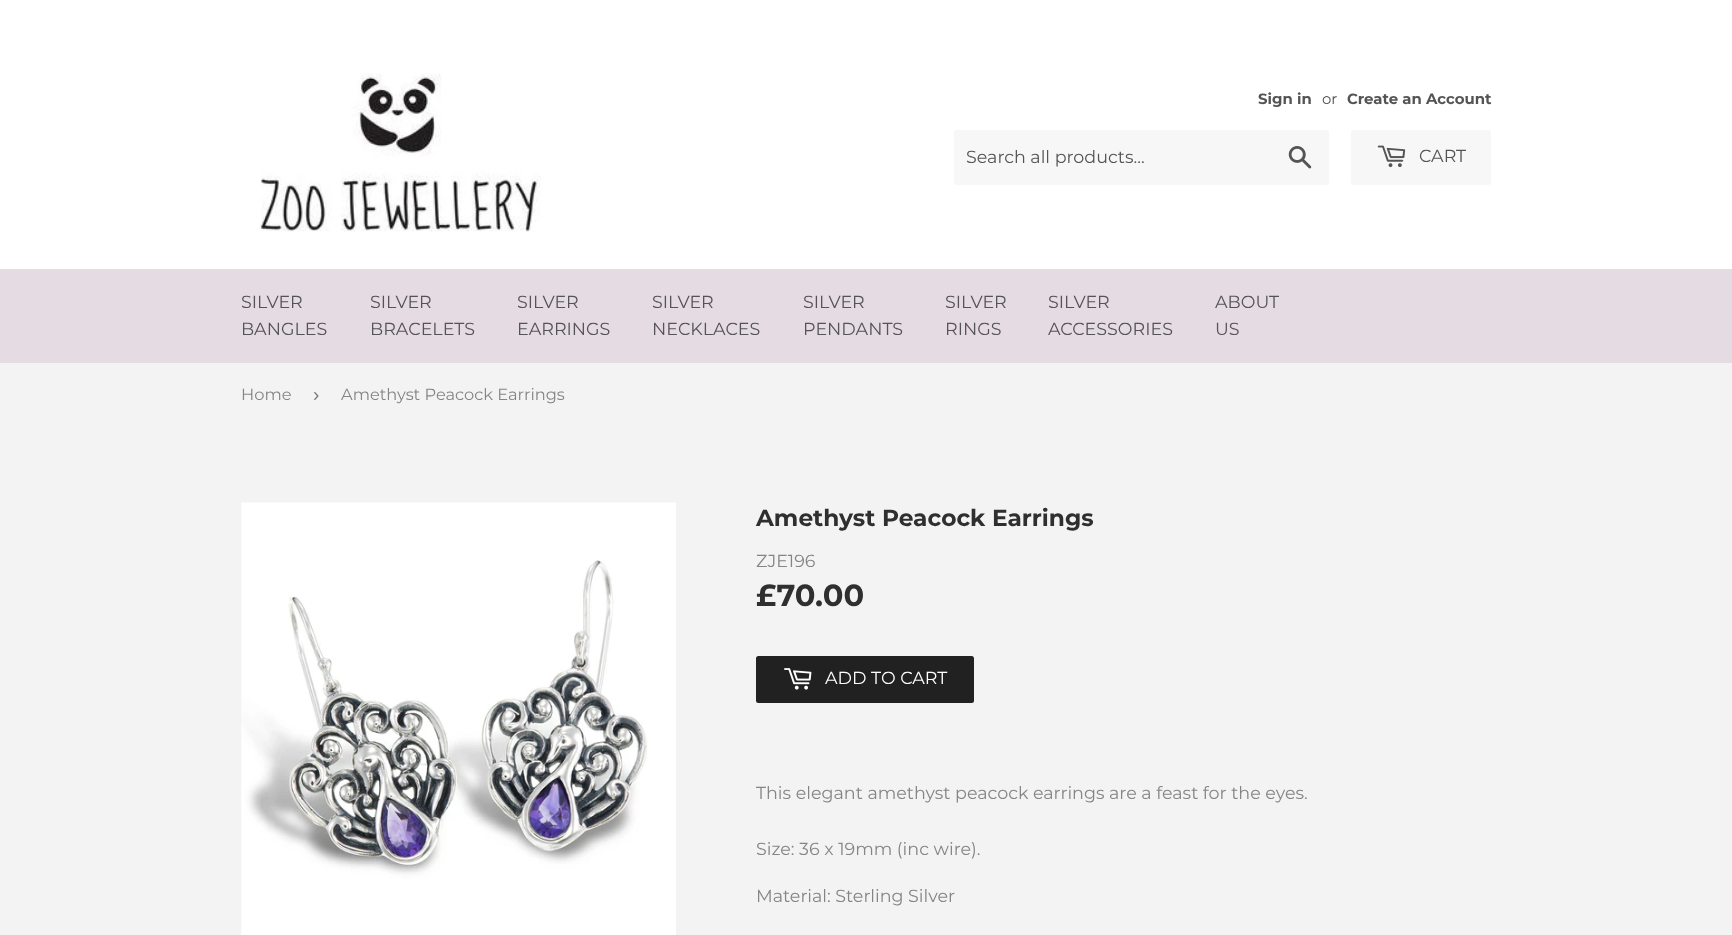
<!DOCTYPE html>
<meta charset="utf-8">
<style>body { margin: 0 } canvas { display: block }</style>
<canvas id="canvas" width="1732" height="935"></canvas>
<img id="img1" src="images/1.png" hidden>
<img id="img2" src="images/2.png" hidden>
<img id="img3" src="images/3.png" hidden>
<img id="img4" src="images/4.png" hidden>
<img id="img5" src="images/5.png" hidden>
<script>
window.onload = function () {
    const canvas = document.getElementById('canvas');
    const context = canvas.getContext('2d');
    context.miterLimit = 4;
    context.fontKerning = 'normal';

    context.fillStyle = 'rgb(243, 243, 243)';
    context.fillRect(0, 0, 1732, 935);
    context.fillStyle = 'rgb(255, 255, 255)';
    context.fillRect(0, 0, 1732, 269);
    context.drawImage(document.getElementById('img1'), 259, 73, 282, 159);
    context.fillStyle = 'rgb(247, 247, 247)';
    context.beginPath();
    context.roundRect(954, 130, 375, 55, 2.5);
    context.fill();
    context.drawImage(document.getElementById('img2'), 1288, 146, 24, 23);
    context.beginPath();
    context.roundRect(1351, 130, 140, 55, 2.5);
    context.fill();
    context.drawImage(document.getElementById('img3'), 1377, 145, 29, 23);
    context.fillStyle = 'rgb(229, 219, 226)';
    context.fillRect(0, 269, 1732, 94);
    context.drawImage(document.getElementById('img4'), 241, 502, 435, 433);
    context.fillStyle = 'rgb(33, 33, 33)';
    context.beginPath();
    context.roundRect(756, 656, 218, 47, 2.5);
    context.fill();
    context.drawImage(document.getElementById('img5'), 784, 668, 28, 22);
    context.font = 'bold 14.9px Montserrat';
    context.fillStyle = 'rgb(84, 84, 84)';
    context.fillText('Sign in', 1258, 104);
    context.font = '14.9px Montserrat';
    context.fillText('or', 1322, 104);
    context.font = 'bold 14.9px Montserrat';
    context.fillText('Create an Account', 1347, 104);
    context.font = '17.5px Montserrat';
    context.fillText('Search all products...', 966, 163);
    context.fillText('CART', 1419, 162);
    context.fillText('SILVER', 241, 308);
    context.fillText('BANGLES', 241, 335);
    context.fillText('SILVER', 370, 308);
    context.fillText('BRACELETS', 370, 335);
    context.fillText('SILVER', 517, 308);
    context.fillText('EARRINGS', 517, 335);
    context.fillText('SILVER', 652, 308);
    context.fillText('NECKLACES', 652, 335);
    context.fillText('SILVER', 803, 308);
    context.fillText('PENDANTS', 803, 335);
    context.fillText('SILVER', 945, 308);
    context.fillText('RINGS', 945, 335);
    context.fillText('SILVER', 1048, 308);
    context.fillText('ACCESSORIES', 1048, 335);
    context.fillText('ABOUT', 1215, 308);
    context.fillText('US', 1215, 335);
    context.font = '16.25px Montserrat';
    context.fillStyle = 'rgb(133, 133, 133)';
    context.fillText('Home', 241, 400);
    context.font = '19px Liberation Sans';
    context.fillStyle = 'rgb(118, 118, 118)';
    context.fillText('›', 313, 401);
    context.font = '16.25px Montserrat';
    context.fillStyle = 'rgb(133, 133, 133)';
    context.fillText('Amethyst Peacock Earrings', 341, 400);
    context.font = 'bold 23.3px Montserrat';
    context.fillStyle = 'rgb(47, 47, 47)';
    context.fillText('Amethyst Peacock Earrings', 756, 526);
    context.font = '17.5px Montserrat';
    context.fillStyle = 'rgb(133, 133, 133)';
    context.fillText('ZJE196', 756, 567);
    context.font = 'bold 30.5px Montserrat';
    context.fillStyle = 'rgb(47, 47, 47)';
    context.fillText('£70.00', 756, 606);
    context.font = '17.5px Montserrat';
    context.fillStyle = 'rgb(255, 255, 255)';
    context.fillText('ADD TO CART', 825, 684);
    context.fillStyle = 'rgb(133, 133, 133)';
    context.fillText('This elegant amethyst peacock earrings are a feast for the eyes.', 756, 799);
    context.fillText('Size: 36 x 19mm (inc wire).', 756, 855);
    context.fillText('Material: Sterling Silver', 756, 902);
};
</script>
